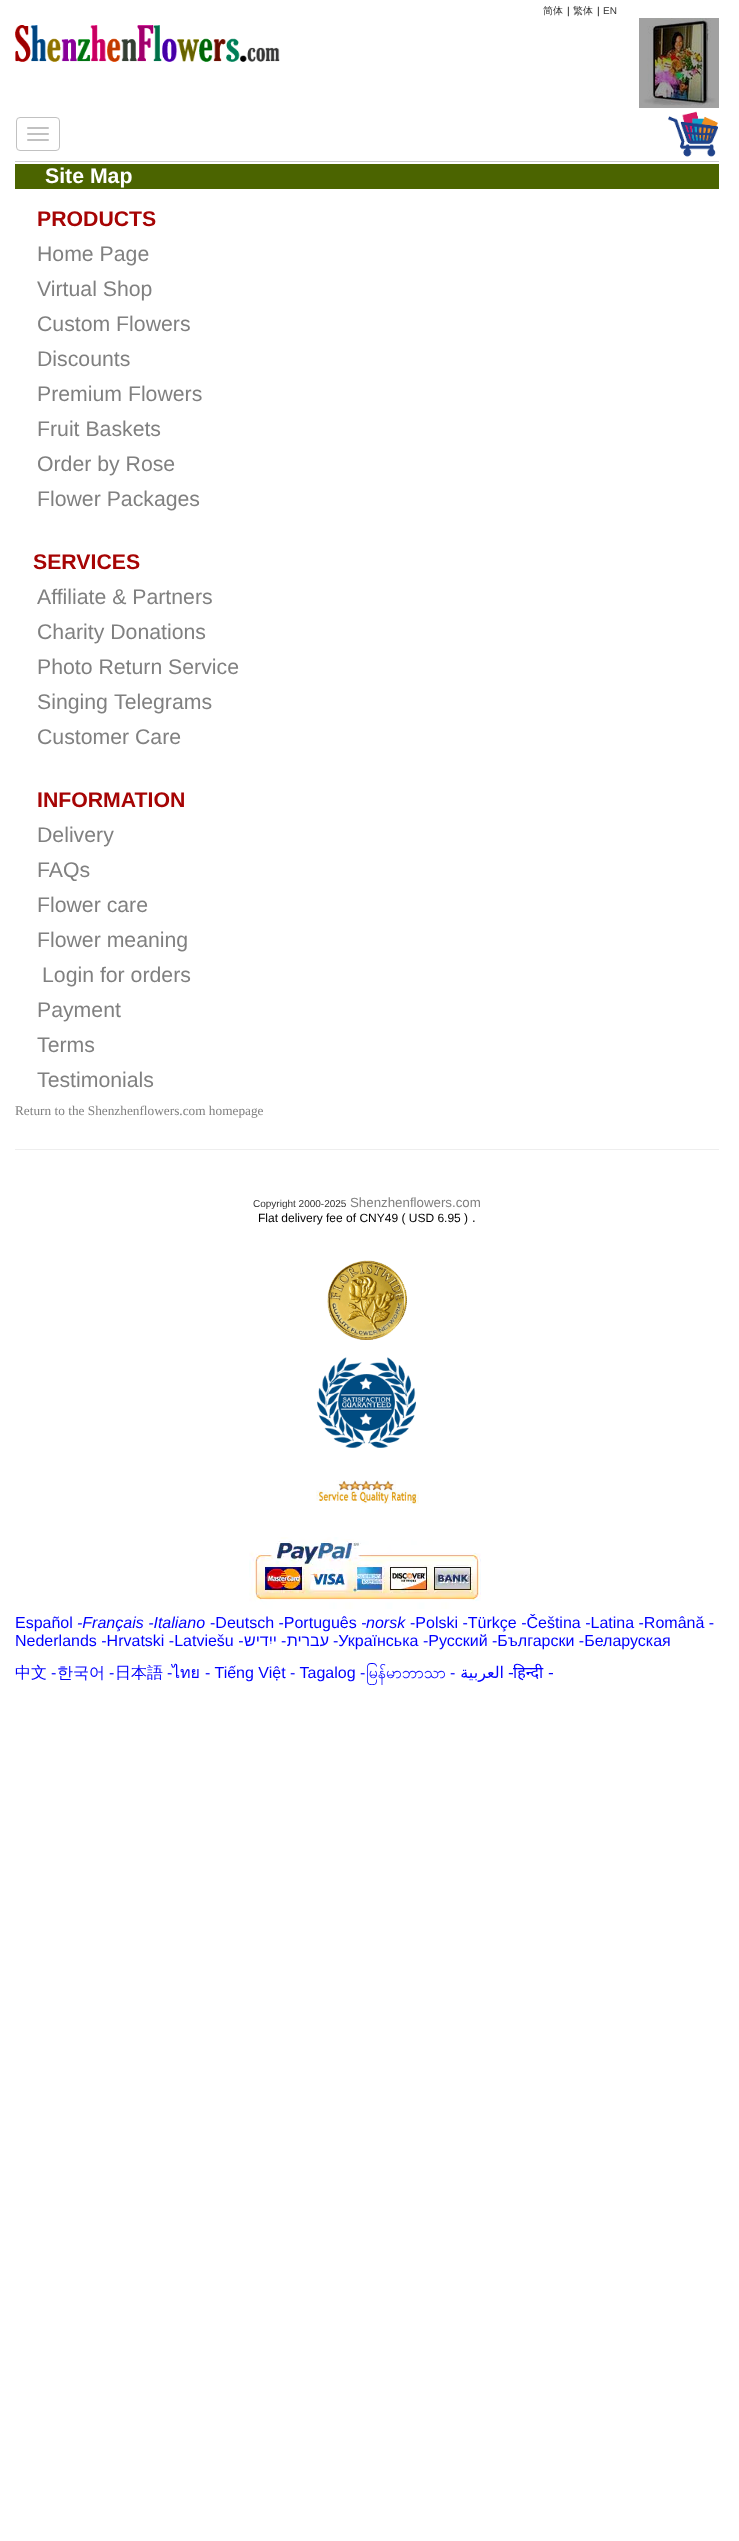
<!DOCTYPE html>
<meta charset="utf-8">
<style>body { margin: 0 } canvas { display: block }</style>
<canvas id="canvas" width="739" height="2541"></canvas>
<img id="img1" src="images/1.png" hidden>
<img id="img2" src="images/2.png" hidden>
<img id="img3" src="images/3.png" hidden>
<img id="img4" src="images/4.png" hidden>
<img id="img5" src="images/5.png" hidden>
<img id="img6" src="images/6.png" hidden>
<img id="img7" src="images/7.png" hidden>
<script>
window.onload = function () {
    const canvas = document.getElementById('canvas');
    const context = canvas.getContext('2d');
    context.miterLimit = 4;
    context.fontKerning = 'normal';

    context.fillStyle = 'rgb(255, 255, 255)';
    context.fillRect(0, 0, 739, 2541);
    context.drawImage(document.getElementById('img1'), 15, 25, 265, 37);
    context.fillStyle = 'rgb(0, 0, 0)';
    context.fillRect(639, 18, 80, 90);
    context.drawImage(document.getElementById('img2'), 639, 18, 80, 90);
    context.beginPath();
    context.roundRect(16.5, 117.5, 43, 33, 3.5);
    context.strokeStyle = 'rgb(193, 193, 193)';
    context.stroke();
    context.fillStyle = 'rgb(193, 193, 193)';
    context.beginPath();
    context.roundRect(27, 127, 22, 2, 1);
    context.fill();
    context.beginPath();
    context.roundRect(27, 133, 22, 2, 1);
    context.fill();
    context.beginPath();
    context.roundRect(27, 139, 22, 2, 1);
    context.fill();
    context.drawImage(document.getElementById('img3'), 668, 111, 50, 46);
    context.fillStyle = 'rgb(204, 204, 204)';
    context.fillRect(15, 161, 704, 1);
    context.fillStyle = 'rgb(75, 100, 0)';
    context.fillRect(15, 164, 704, 25);
    context.fillStyle = 'rgb(238, 238, 238)';
    context.fillRect(15, 1149, 704, 1);
    context.drawImage(document.getElementById('img4'), 327, 1260, 80, 80);
    context.drawImage(document.getElementById('img5'), 317, 1357, 99, 91);
    context.drawImage(document.getElementById('img6'), 316, 1480, 103, 24);
    context.drawImage(document.getElementById('img7'), 249, 1537, 232, 72);
    context.font = '500 10px WenQuanYi Zen Hei';
    context.fillStyle = 'rgb(51, 51, 51)';
    context.fillText('简体', 543, 14);
    context.font = '10px Liberation Sans';
    context.fillStyle = 'rgb(0, 0, 0)';
    context.fillText('|', 567, 14);
    context.font = '500 10px WenQuanYi Zen Hei';
    context.fillStyle = 'rgb(51, 51, 51)';
    context.fillText('繁体', 573, 14);
    context.font = '10px Liberation Sans';
    context.fillStyle = 'rgb(0, 0, 0)';
    context.fillText('|', 597, 14);
    context.fillStyle = 'rgb(51, 51, 51)';
    context.fillText('EN', 603, 14);
    context.font = 'bold 21.25px Liberation Sans';
    context.fillStyle = 'rgb(255, 255, 255)';
    context.fillText('Site Map', 45, 183);
    context.fillStyle = 'rgb(166, 4, 4)';
    context.fillText('PRODUCTS', 37, 226);
    context.font = '21.25px Liberation Sans';
    context.fillStyle = 'rgb(128, 128, 128)';
    context.fillText('Home Page', 37, 261);
    context.fillText('Virtual Shop', 37, 296);
    context.fillText('Custom Flowers', 37, 331);
    context.fillText('Discounts', 37, 366);
    context.fillText('Premium Flowers', 37, 401);
    context.fillText('Fruit Baskets', 37, 436);
    context.fillText('Order by Rose', 37, 471);
    context.fillText('Flower Packages', 37, 506);
    context.font = 'bold 21.25px Liberation Sans';
    context.fillStyle = 'rgb(166, 4, 4)';
    context.fillText('SERVICES', 33, 569);
    context.font = '21.25px Liberation Sans';
    context.fillStyle = 'rgb(128, 128, 128)';
    context.fillText('Affiliate & Partners', 37, 604);
    context.fillText('Charity Donations', 37, 639);
    context.fillText('Photo Return Service', 37, 674);
    context.fillText('Singing', 37, 709);
    context.fillText('Telegrams', 114, 709);
    context.fillText('Customer Care', 37, 744);
    context.font = 'bold 21.25px Liberation Sans';
    context.fillStyle = 'rgb(166, 4, 4)';
    context.fillText('INFORMATION', 37, 807);
    context.font = '21.25px Liberation Sans';
    context.fillStyle = 'rgb(128, 128, 128)';
    context.fillText('Delivery', 37, 842);
    context.fillText('FAQs', 37, 877);
    context.fillText('Flower care', 37, 912);
    context.fillText('Flower meaning', 37, 947);
    context.fillText('Login for orders', 42, 982);
    context.fillText('Payment', 37, 1017);
    context.fillText('Terms', 37, 1052);
    context.fillText('Testimonials', 37, 1087);
    context.font = '13.3px Liberation Serif';
    context.fillText('Return to the Shenzhenflowers.com homepage', 15, 1115);
    context.font = '10px Liberation Sans';
    context.fillStyle = 'rgb(51, 51, 51)';
    context.fillText('Copyright 2000-2025', 253, 1207);
    context.font = '13.3px Liberation Sans';
    context.fillStyle = 'rgb(128, 128, 128)';
    context.fillText('Shenzhenflowers.com', 350, 1207);
    context.font = '12px Liberation Sans';
    context.fillStyle = 'rgb(0, 0, 0)';
    context.fillText('Flat delivery fee of CNY49 ( USD 6.95 )', 258, 1222);
    context.font = '13px Liberation Sans';
    context.fillText('.', 472, 1222);
    context.font = '16px Liberation Sans';
    context.fillStyle = 'rgb(0, 0, 255)';
    context.fillText('Español', 15, 1628);
    context.font = 'italic 16px Liberation Sans';
    context.fillText('-Français -Italiano', 77, 1628);
    context.font = '16px Liberation Sans';
    context.fillText('-Deutsch -Português -', 210, 1628);
    context.font = 'italic 16px Liberation Sans';
    context.fillText('norsk', 366, 1628);
    context.font = '16px Liberation Sans';
    context.fillText('-Polski -Türkçe -Čeština -Latina -Română -', 410, 1628);
    context.fillText('Nederlands -Hrvatski -Latviešu -', 15, 1646);
    context.direction = 'rtl';
    context.fillText('ייִדיש', 277, 1646);
    context.direction = 'ltr';
    context.fillText('-', 281, 1646);
    context.direction = 'rtl';
    context.fillText('עברית', 329, 1646);
    context.direction = 'ltr';
    context.fillText('-Українська -Русский -Български -Беларуская', 333, 1646);
    context.font = '500 16px WenQuanYi Zen Hei';
    context.fillText('中文', 15, 1678);
    context.font = '16px Liberation Sans';
    context.fillText('-', 51, 1678);
    context.font = '500 16px WenQuanYi Zen Hei';
    context.fillText('한국어', 57, 1678);
    context.font = '16px Liberation Sans';
    context.fillText('-', 109, 1678);
    context.font = '500 16px WenQuanYi Zen Hei';
    context.fillText('日本語', 115, 1678);
    context.font = '16px Liberation Sans';
    context.fillText('-', 167, 1678);
    context.font = '16px Loma';
    context.fillText('ไทย', 172, 1678);
    context.font = '16px Liberation Sans';
    context.fillText('- Tiếng Việt - Tagalog -', 205, 1678);
    context.font = '16px Padauk';
    context.fillText('မြန်မာဘာသာ', 366, 1678);
    context.font = '16px Liberation Sans';
    context.fillText('-', 450, 1678);
    context.direction = 'rtl';
    context.font = '16px DejaVu Sans';
    context.fillText('العربية', 504, 1678);
    context.direction = 'ltr';
    context.fillText('-', 508, 1678);
    context.font = '16px Noto Sans';
    context.fillText('हिन्दी', 513, 1678);
    context.font = '16px DejaVu Sans';
    context.fillText('-', 548, 1678);
};
</script>
